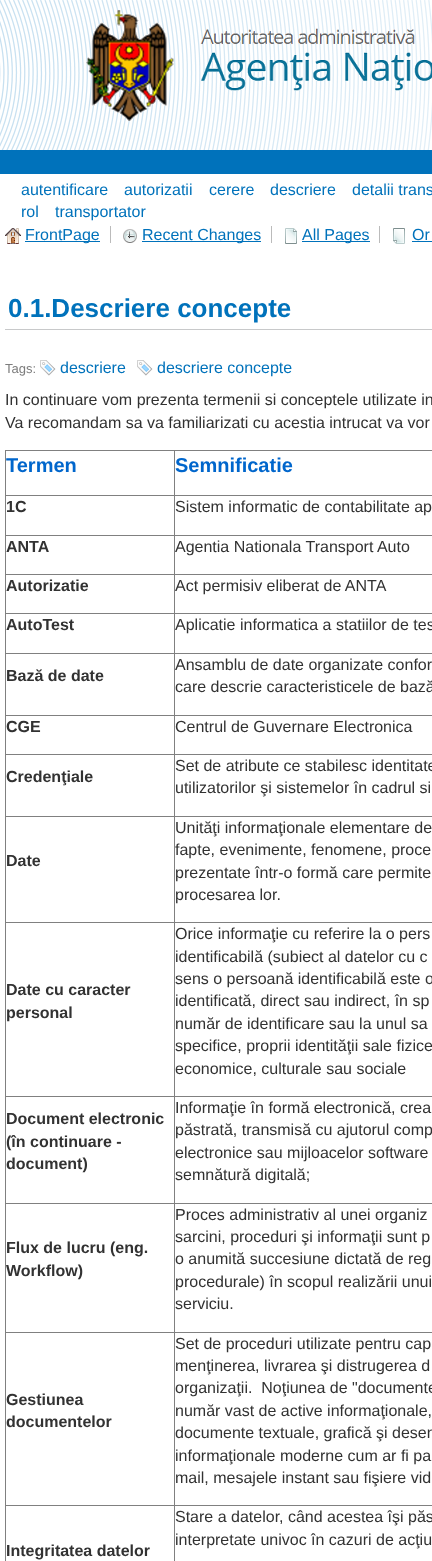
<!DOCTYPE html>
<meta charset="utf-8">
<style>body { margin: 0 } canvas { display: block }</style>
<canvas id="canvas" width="432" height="1561"></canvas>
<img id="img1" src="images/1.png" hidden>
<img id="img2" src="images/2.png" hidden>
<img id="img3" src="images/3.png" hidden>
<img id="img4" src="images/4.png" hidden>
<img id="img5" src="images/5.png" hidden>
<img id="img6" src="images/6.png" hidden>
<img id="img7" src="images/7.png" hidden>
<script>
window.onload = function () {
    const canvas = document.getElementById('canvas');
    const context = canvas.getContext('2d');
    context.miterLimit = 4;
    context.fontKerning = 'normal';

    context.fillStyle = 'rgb(255, 255, 255)';
    context.fillRect(0, 0, 432, 1561);
    context.drawImage(document.getElementById('img1'), 0, 0, 432, 150);
    context.drawImage(document.getElementById('img2'), 86, 10, 346, 111);
    context.fillStyle = 'rgb(0, 114, 187)';
    context.fillRect(0, 150, 432, 24);
    context.drawImage(document.getElementById('img3'), 5, 228, 16, 16);
    context.fillStyle = 'rgb(187, 187, 187)';
    context.fillRect(110, 226, 1, 17);
    context.fillStyle = 'rgb(0, 114, 187)';
    context.fillRect(25, 241, 75, 1);
    context.drawImage(document.getElementById('img4'), 123, 229, 14, 14);
    context.fillStyle = 'rgb(187, 187, 187)';
    context.fillRect(271, 226, 1, 17);
    context.fillStyle = 'rgb(0, 114, 187)';
    context.fillRect(142, 241, 119, 1);
    context.drawImage(document.getElementById('img5'), 285, 228, 12, 16);
    context.fillStyle = 'rgb(187, 187, 187)';
    context.fillRect(379, 226, 1, 17);
    context.fillStyle = 'rgb(0, 114, 187)';
    context.fillRect(302, 241, 68, 1);
    context.drawImage(document.getElementById('img6'), 393, 228, 12, 16);
    context.fillRect(412, 241, 20, 1);
    context.fillStyle = 'rgb(200, 201, 202)';
    context.fillRect(5, 329, 427, 1);
    context.drawImage(document.getElementById('img7'), 40, 360, 16, 16);
    context.drawImage(document.getElementById('img7'), 137, 360, 16, 16);
    context.fillStyle = 'rgb(128, 128, 128)';
    context.fillRect(5, 450, 427, 1);
    context.fillRect(5, 450, 1, 1111);
    context.fillRect(174, 495, 258, 1);
    context.fillRect(174, 535, 258, 1);
    context.fillRect(174, 574, 258, 1);
    context.fillRect(174, 613, 258, 1);
    context.fillRect(174, 653, 258, 1);
    context.fillRect(174, 715, 258, 1);
    context.fillRect(174, 754, 258, 1);
    context.fillRect(174, 816, 258, 1);
    context.fillRect(174, 922, 258, 1);
    context.fillRect(174, 1096, 258, 1);
    context.fillRect(174, 1203, 258, 1);
    context.fillRect(174, 1332, 258, 1);
    context.fillRect(174, 1505, 258, 1);
    context.fillRect(174, 1505, 1, 56);
    context.fillRect(5, 1505, 170, 1);
    context.fillRect(174, 1332, 1, 174);
    context.fillRect(5, 1332, 170, 1);
    context.fillRect(174, 1203, 1, 130);
    context.fillRect(5, 1203, 170, 1);
    context.fillRect(174, 1096, 1, 108);
    context.fillRect(5, 1096, 170, 1);
    context.fillRect(174, 922, 1, 175);
    context.fillRect(5, 922, 170, 1);
    context.fillRect(174, 816, 1, 107);
    context.fillRect(5, 816, 170, 1);
    context.fillRect(174, 754, 1, 63);
    context.fillRect(5, 754, 170, 1);
    context.fillRect(174, 715, 1, 40);
    context.fillRect(5, 715, 170, 1);
    context.fillRect(174, 653, 1, 63);
    context.fillRect(5, 653, 170, 1);
    context.fillRect(174, 613, 1, 41);
    context.fillRect(5, 613, 170, 1);
    context.fillRect(174, 574, 1, 40);
    context.fillRect(5, 574, 170, 1);
    context.fillRect(174, 535, 1, 40);
    context.fillRect(5, 535, 170, 1);
    context.fillRect(174, 495, 1, 41);
    context.fillRect(5, 495, 170, 1);
    context.fillRect(174, 450, 1, 46);
    context.font = '16px Liberation Sans';
    context.fillStyle = 'rgb(0, 114, 187)';
    context.fillText('autentificare', 21, 195);
    context.fillText('autorizatii', 124, 195);
    context.fillText('cerere', 209, 195);
    context.fillText('descriere', 270, 195);
    context.fillText('detalii trans', 352, 195);
    context.fillText('rol', 21, 217);
    context.fillText('transportator', 55, 217);
    context.fillText('FrontPage', 25, 240);
    context.fillText('Recent Changes', 142, 240);
    context.fillText('All Pages', 302, 240);
    context.fillText('Or', 412, 240);
    context.font = 'bold 26px Liberation Sans';
    context.fillText('0.1.Descriere concepte', 8, 317);
    context.font = '13px Liberation Sans';
    context.fillStyle = 'rgb(125, 125, 125)';
    context.fillText('Tags:', 5, 373);
    context.font = '16px Liberation Sans';
    context.fillStyle = 'rgb(0, 114, 187)';
    context.fillText('descriere', 60, 373);
    context.fillText('descriere concepte', 157, 373);
    context.fillStyle = 'rgb(50, 50, 50)';
    context.fillText('In continuare vom prezenta termenii si conceptele utilizate in', 5, 405);
    context.fillText('Va recomandam sa va familiarizati cu acestia intrucat va vor', 5, 428);
    context.font = 'bold 20px Liberation Sans';
    context.fillStyle = 'rgb(0, 102, 204)';
    context.fillText('Termen', 6, 472);
    context.fillText('Semnificatie', 175, 472);
    context.font = 'bold 16px Liberation Sans';
    context.fillStyle = 'rgb(50, 50, 50)';
    context.fillText('1C', 6, 512);
    context.font = '16px Liberation Sans';
    context.fillText('Sistem informatic de contabilitate ap', 175, 512);
    context.font = 'bold 16px Liberation Sans';
    context.fillText('ANTA', 6, 552);
    context.font = '16px Liberation Sans';
    context.fillText('Agentia Nationala Transport Auto', 175, 552);
    context.font = 'bold 16px Liberation Sans';
    context.fillText('Autorizatie', 6, 591);
    context.font = '16px Liberation Sans';
    context.fillText('Act permisiv eliberat de ANTA', 175, 591);
    context.font = 'bold 16px Liberation Sans';
    context.fillText('AutoTest', 6, 630);
    context.font = '16px Liberation Sans';
    context.fillText('Aplicatie informatica a statiilor de tes', 175, 630);
    context.font = 'bold 16px Liberation Sans';
    context.fillText('Bază de date', 6, 681);
    context.font = '16px Liberation Sans';
    context.fillText('Ansamblu de date organizate confor', 175, 670);
    context.fillText('care descrie caracteristicele de bază', 175, 692);
    context.font = 'bold 16px Liberation Sans';
    context.fillText('CGE', 6, 732);
    context.font = '16px Liberation Sans';
    context.fillText('Centrul de Guvernare Electronica', 175, 732);
    context.font = 'bold 16px Liberation Sans';
    context.fillText('Credenţiale', 6, 782);
    context.font = '16px Liberation Sans';
    context.fillText('Set de atribute ce stabilesc identitate', 175, 771);
    context.fillText('utilizatorilor şi sistemelor în cadrul si', 175, 793);
    context.font = 'bold 16px Liberation Sans';
    context.fillText('Date', 6, 866);
    context.font = '16px Liberation Sans';
    context.fillText('Unităţi informaţionale elementare de', 175, 833);
    context.fillText('fapte, evenimente, fenomene, proce', 175, 855);
    context.fillText('prezentate într-o formă care permite', 175, 878);
    context.fillText('procesarea lor.', 175, 900);
    context.font = 'bold 16px Liberation Sans';
    context.fillText('Date cu caracter', 6, 995);
    context.fillText('personal', 6, 1018);
    context.font = '16px Liberation Sans';
    context.fillText('Orice informaţie cu referire la o pers', 175, 939);
    context.fillText('identificabilă (subiect al datelor cu c', 175, 962);
    context.fillText('sens o persoană identificabilă este o', 175, 984);
    context.fillText('identificată, direct sau indirect, în sp', 175, 1006);
    context.fillText('număr de identificare sau la unul sa', 175, 1029);
    context.fillText('specifice, proprii identităţii sale fizice', 175, 1051);
    context.fillText('economice, culturale sau sociale', 175, 1074);
    context.font = 'bold 16px Liberation Sans';
    context.fillText('Document electronic', 6, 1124);
    context.fillText('(în continuare -', 6, 1147);
    context.fillText('document)', 6, 1169);
    context.font = '16px Liberation Sans';
    context.fillText('Informaţie în formă electronică, crea', 175, 1113);
    context.fillText('păstrată, transmisă cu ajutorul comp', 175, 1135);
    context.fillText('electronice sau mijloacelor software', 175, 1158);
    context.fillText('semnătură digitală;', 175, 1180);
    context.font = 'bold 16px Liberation Sans';
    context.fillText('Flux de lucru (eng.', 6, 1253);
    context.fillText('Workflow)', 6, 1276);
    context.font = '16px Liberation Sans';
    context.fillText('Proces administrativ al unei organiz', 175, 1220);
    context.fillText('sarcini, proceduri şi informaţii sunt p', 175, 1242);
    context.fillText('o anumită succesiune dictată de reg', 175, 1264);
    context.fillText('procedurale) în scopul realizării unui', 175, 1287);
    context.fillText('serviciu.', 175, 1309);
    context.font = 'bold 16px Liberation Sans';
    context.fillText('Gestiunea', 6, 1405);
    context.fillText('documentelor', 6, 1427);
    context.font = '16px Liberation Sans';
    context.fillText('Set de proceduri utilizate pentru cap', 175, 1349);
    context.fillText('menţinerea, livrarea şi distrugerea d', 175, 1371);
    context.fillText('organizaţii.  Noţiunea de "documente', 175, 1393);
    context.fillText('număr vast de active informaţionale,', 175, 1416);
    context.fillText('documente textuale, grafică şi desen', 175, 1438);
    context.fillText('informaţionale moderne cum ar fi pa', 175, 1461);
    context.fillText('mail, mesajele instant sau fişiere vid', 175, 1483);
    context.fillText('Stare a datelor, când acestea îşi păs', 175, 1522);
    context.fillText('interpretate univoc în cazuri de acţiu', 175, 1545);
    context.font = 'bold 16px Liberation Sans';
    context.fillText('Integritatea datelor', 6, 1556);
};
</script>
